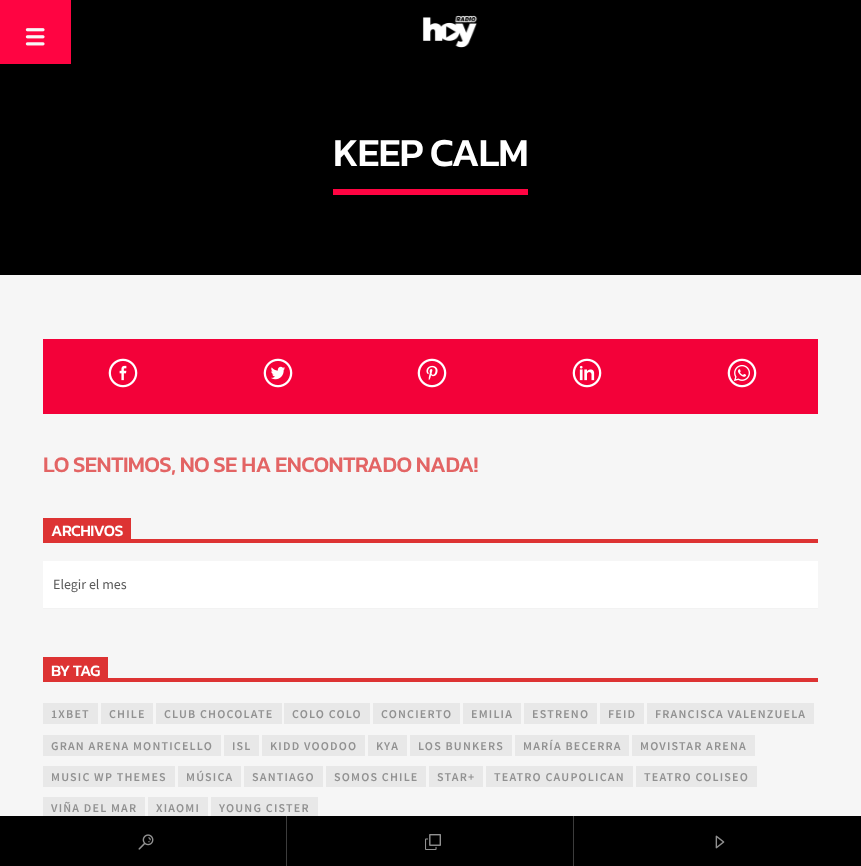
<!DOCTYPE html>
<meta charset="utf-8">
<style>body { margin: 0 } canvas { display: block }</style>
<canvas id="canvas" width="861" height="866"></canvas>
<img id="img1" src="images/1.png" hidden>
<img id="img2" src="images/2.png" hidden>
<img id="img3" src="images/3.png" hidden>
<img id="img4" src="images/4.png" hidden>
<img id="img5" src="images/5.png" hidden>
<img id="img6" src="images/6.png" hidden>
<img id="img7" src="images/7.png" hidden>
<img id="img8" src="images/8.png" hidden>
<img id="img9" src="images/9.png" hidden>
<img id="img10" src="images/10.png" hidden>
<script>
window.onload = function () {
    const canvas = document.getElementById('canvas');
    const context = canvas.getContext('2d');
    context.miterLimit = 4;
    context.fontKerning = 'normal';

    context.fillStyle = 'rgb(246, 246, 246)';
    context.fillRect(0, 0, 861, 866);
    context.fillStyle = 'rgb(0, 0, 0)';
    context.fillRect(71, 0, 790, 64);
    context.fillStyle = 'rgb(255, 4, 66)';
    context.fillRect(0, 0, 71, 64);
    context.drawImage(document.getElementById('img1'), 25, 28, 20, 18);
    context.drawImage(document.getElementById('img2'), 422, 15, 56, 33);
    context.fillStyle = 'rgb(0, 0, 0)';
    context.fillRect(0, 64, 861, 211);
    context.fillStyle = 'rgb(255, 4, 66)';
    context.fillRect(333, 189, 195, 6);
    context.fillStyle = 'rgb(243, 1, 57)';
    context.fillRect(43, 339, 775, 75);
    context.drawImage(document.getElementById('img3'), 108, 358, 30, 30);
    context.drawImage(document.getElementById('img4'), 263, 358, 30, 30);
    context.drawImage(document.getElementById('img5'), 417, 358, 30, 30);
    context.drawImage(document.getElementById('img6'), 572, 358, 30, 30);
    context.drawImage(document.getElementById('img7'), 727, 358, 30, 30);
    context.fillStyle = 'rgb(221, 51, 51)';
    context.fillRect(131, 539, 687, 4);
    context.fillRect(43, 518, 88, 25);
    context.fillStyle = 'rgb(255, 255, 255)';
    context.fillRect(43, 561, 775, 47);
    context.fillStyle = 'rgb(242, 242, 242)';
    context.fillRect(43, 608, 775, 1);
    context.fillStyle = 'rgb(221, 51, 51)';
    context.fillRect(108, 678, 710, 4);
    context.fillRect(43, 657, 65, 25);
    context.fillStyle = 'rgb(232, 232, 232)';
    context.fillRect(43, 703, 55, 21);
    context.fillRect(101, 703, 52, 21);
    context.fillRect(156, 703, 126, 21);
    context.fillRect(284, 703, 86, 21);
    context.fillRect(373, 703, 87, 21);
    context.fillRect(463, 703, 58, 21);
    context.fillRect(524, 703, 73, 21);
    context.fillRect(600, 703, 44, 21);
    context.fillRect(647, 703, 167, 21);
    context.fillRect(43, 735, 178, 21);
    context.fillRect(224, 735, 35, 21);
    context.fillRect(262, 735, 103, 21);
    context.fillRect(368, 735, 39, 21);
    context.fillRect(410, 735, 102, 21);
    context.fillRect(515, 735, 114, 21);
    context.fillRect(632, 735, 123, 21);
    context.fillRect(43, 766, 132, 21);
    context.fillRect(178, 766, 63, 21);
    context.fillRect(244, 766, 79, 21);
    context.fillRect(326, 766, 100, 21);
    context.fillRect(429, 766, 54, 21);
    context.fillRect(486, 766, 147, 21);
    context.fillRect(636, 766, 121, 21);
    context.fillRect(43, 797, 102, 19);
    context.fillRect(148, 797, 60, 19);
    context.fillRect(211, 797, 107, 19);
    context.fillStyle = 'rgb(0, 0, 0)';
    context.fillRect(0, 816, 861, 50);
    context.fillStyle = 'rgb(60, 60, 60)';
    context.fillRect(286, 816, 1, 50);
    context.drawImage(document.getElementById('img8'), 138, 834, 16, 16);
    context.fillRect(573, 816, 1, 50);
    context.drawImage(document.getElementById('img9'), 425, 834, 16, 16);
    context.drawImage(document.getElementById('img10'), 715, 835, 10, 14);
    context.letterSpacing = '-1.25px';
    context.font = '500 40px Kanit';
    context.fillStyle = 'rgb(255, 255, 255)';
    context.fillText('KEEP CALM', 333, 166);
    context.letterSpacing = '-0.65px';
    context.font = '500 22.4px Kanit';
    context.fillStyle = 'rgb(227, 100, 100)';
    context.fillText('LO SENTIMOS, NO SE HA ENCONTRADO NADA!', 43, 472);
    context.letterSpacing = '-0.5px';
    context.font = '500 16px Kanit';
    context.fillStyle = 'rgb(255, 255, 255)';
    context.fillText('ARCHIVOS', 51, 536);
    context.letterSpacing = '0px';
    context.font = '14px Source Sans Pro';
    context.fillStyle = 'rgb(89, 89, 89)';
    context.fillText('Elegir el mes', 53, 589);
    context.letterSpacing = '-0.5px';
    context.font = '500 16px Kanit';
    context.fillStyle = 'rgb(255, 255, 255)';
    context.fillText('BY TAG', 51, 676);
    context.letterSpacing = '1.2px';
    context.font = '600 12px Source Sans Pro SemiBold';
    context.fillStyle = 'rgb(145, 145, 145)';
    context.fillText('1XBET', 51, 718);
    context.fillText('CHILE', 109, 718);
    context.fillText('CLUB CHOCOLATE', 164, 718);
    context.fillText('COLO COLO', 292, 718);
    context.fillText('CONCIERTO', 381, 718);
    context.fillText('EMILIA', 471, 718);
    context.fillText('ESTRENO', 532, 718);
    context.fillText('FEID', 608, 718);
    context.fillText('FRANCISCA VALENZUELA', 655, 718);
    context.fillText('GRAN ARENA MONTICELLO', 51, 750);
    context.fillText('ISL', 232, 750);
    context.fillText('KIDD VOODOO', 270, 750);
    context.fillText('KYA', 376, 750);
    context.fillText('LOS BUNKERS', 418, 750);
    context.fillText('MARÍA BECERRA', 523, 750);
    context.fillText('MOVISTAR ARENA', 640, 750);
    context.fillText('MUSIC WP THEMES', 51, 781);
    context.fillText('MÚSICA', 186, 781);
    context.fillText('SANTIAGO', 252, 781);
    context.fillText('SOMOS CHILE', 334, 781);
    context.fillText('STAR+', 437, 781);
    context.fillText('TEATRO CAUPOLICAN', 494, 781);
    context.fillText('TEATRO COLISEO', 644, 781);
    context.fillText('VIÑA DEL MAR', 51, 812);
    context.fillText('XIAOMI', 156, 812);
    context.fillText('YOUNG CISTER', 219, 812);
};
</script>
